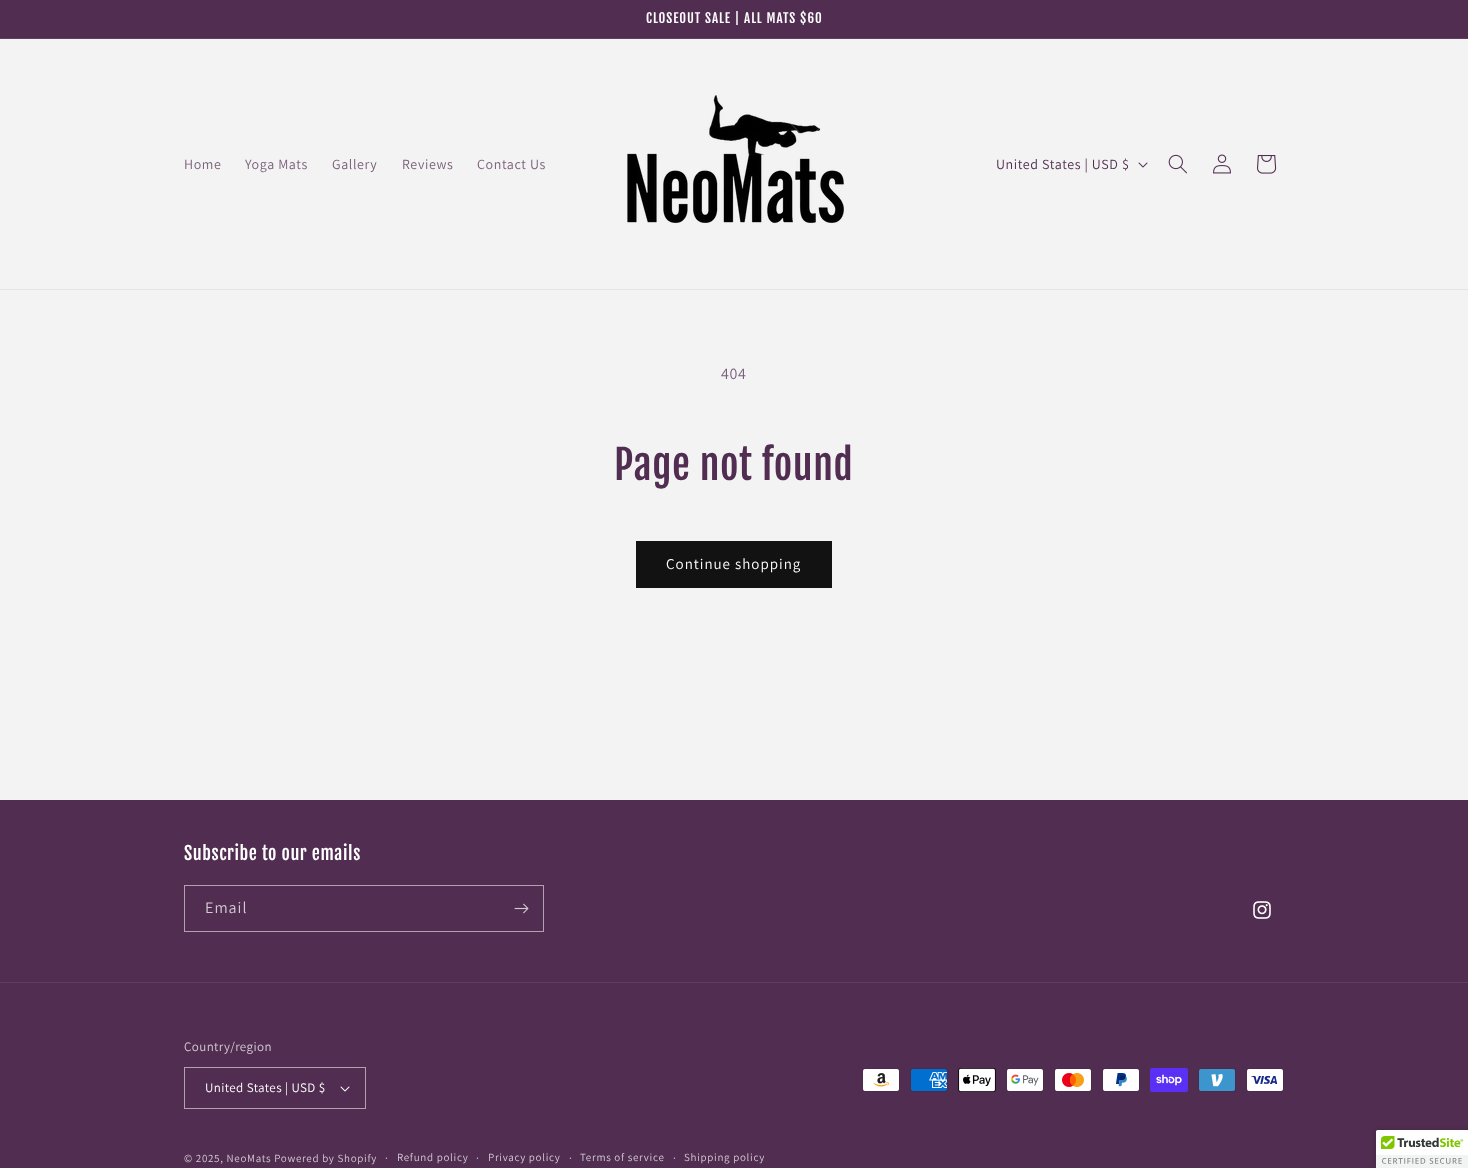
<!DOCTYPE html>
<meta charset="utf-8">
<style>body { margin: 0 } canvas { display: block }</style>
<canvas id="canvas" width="1468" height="1168"></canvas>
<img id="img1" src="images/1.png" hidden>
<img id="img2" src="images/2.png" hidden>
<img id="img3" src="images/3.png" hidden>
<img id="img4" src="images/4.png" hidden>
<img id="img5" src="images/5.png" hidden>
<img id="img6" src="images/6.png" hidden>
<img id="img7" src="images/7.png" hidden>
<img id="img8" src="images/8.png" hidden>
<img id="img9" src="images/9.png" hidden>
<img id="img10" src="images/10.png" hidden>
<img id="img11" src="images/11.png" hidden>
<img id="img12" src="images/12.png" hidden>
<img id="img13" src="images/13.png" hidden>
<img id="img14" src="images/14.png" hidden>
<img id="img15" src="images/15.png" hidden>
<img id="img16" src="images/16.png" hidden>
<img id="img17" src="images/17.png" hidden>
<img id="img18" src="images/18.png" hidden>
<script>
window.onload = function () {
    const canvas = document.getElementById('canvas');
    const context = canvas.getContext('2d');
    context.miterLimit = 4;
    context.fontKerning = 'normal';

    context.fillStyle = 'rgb(243, 243, 243)';
    context.fillRect(0, 0, 1468, 1168);
    context.fillStyle = 'rgb(81, 46, 81)';
    context.fillRect(0, 0, 1468, 38);
    context.fillStyle = 'rgb(95, 63, 95)';
    context.fillRect(0, 38, 1468, 1);
    context.fillStyle = 'rgb(230, 227, 230)';
    context.fillRect(0, 289, 1468, 1);
    context.drawImage(document.getElementById('img1'), 627, 95, 217, 129);
    context.drawImage(document.getElementById('img2'), 1138, 162, 10, 6);
    context.drawImage(document.getElementById('img3'), 1168, 154, 19, 20);
    context.drawImage(document.getElementById('img4'), 1213, 154, 18, 20);
    context.drawImage(document.getElementById('img5'), 1257, 155, 20, 19);
    context.fillStyle = 'rgb(18, 18, 18)';
    context.fillRect(636, 541, 196, 47);
    context.fillStyle = 'rgb(81, 46, 81)';
    context.fillRect(0, 800, 1468, 368);
    context.strokeStyle = 'rgb(177, 161, 177)';
    context.strokeRect(184.5, 885.5, 359, 46);
    context.drawImage(document.getElementById('img6'), 514, 903, 15, 11);
    context.drawImage(document.getElementById('img7'), 1253, 901, 18, 18);
    context.fillStyle = 'rgb(95, 63, 95)';
    context.fillRect(0, 982, 1468, 1);
    context.drawImage(document.getElementById('img8'), 340, 1086, 10, 6);
    context.strokeRect(184.5, 1067.5, 181, 41);
    context.drawImage(document.getElementById('img9'), 862, 1068, 38, 24);
    context.drawImage(document.getElementById('img10'), 910, 1068, 38, 24);
    context.drawImage(document.getElementById('img11'), 958, 1068, 38, 24);
    context.drawImage(document.getElementById('img12'), 1006, 1068, 38, 24);
    context.drawImage(document.getElementById('img13'), 1054, 1068, 38, 24);
    context.drawImage(document.getElementById('img14'), 1102, 1068, 38, 24);
    context.drawImage(document.getElementById('img15'), 1150, 1068, 38, 24);
    context.drawImage(document.getElementById('img16'), 1198, 1068, 38, 24);
    context.drawImage(document.getElementById('img17'), 1246, 1068, 38, 24);
    context.fillStyle = 'rgba(0, 0, 0, 0.2)';
    context.filter = 'blur(2.5px)';
    context.beginPath();
    context.roundRect(1376, 1130, 92, 38, 2);
    context.fill();
    context.filter = 'none';
    context.fillStyle = 'rgb(255, 255, 255)';
    context.beginPath();
    context.roundRect(1376, 1130, 92, 38, [2, 0, 0, 0]);
    context.fill();
    context.drawImage(document.getElementById('img18'), 1376, 1130, 92, 38);
    context.letterSpacing = '1px';
    context.font = '13px Fjalla One';
    context.fillText('CLOSEOUT SALE | ALL MATS $60', 646, 23);
    context.letterSpacing = '0.6px';
    context.font = '14px Assistant';
    context.fillStyle = 'rgb(122, 95, 122)';
    context.fillText('Home', 184, 169);
    context.fillText('Yoga Mats', 245, 169);
    context.fillText('Gallery', 332, 169);
    context.fillText('Reviews', 402, 169);
    context.fillText('Contact Us', 477, 169);
    context.fillStyle = 'rgb(81, 46, 81)';
    context.fillText('United States | USD $', 996, 169);
    context.font = '16px Assistant';
    context.fillStyle = 'rgb(122, 95, 122)';
    context.fillText('404', 721, 379);
    context.font = '40px Fjalla One';
    context.fillStyle = 'rgb(81, 46, 81)';
    context.fillText('Page not found', 614, 480);
    context.letterSpacing = '1px';
    context.font = '15px Assistant';
    context.fillStyle = 'rgb(255, 255, 255)';
    context.fillText('Continue shopping', 666, 569);
    context.letterSpacing = '0.6px';
    context.font = '18px Fjalla One';
    context.fillText('Subscribe to our emails', 184, 860);
    context.letterSpacing = '1px';
    context.font = '16px Assistant';
    context.fillStyle = 'rgb(212, 203, 212)';
    context.fillText('Email', 205, 913);
    context.letterSpacing = '0.4px';
    context.font = '13px Assistant';
    context.fillText('Country/region', 184, 1051);
    context.fillStyle = 'rgb(255, 255, 255)';
    context.fillText('United States | USD $', 205, 1092);
    context.letterSpacing = '0.7px';
    context.font = '11px Assistant';
    context.fillStyle = 'rgb(212, 203, 212)';
    context.fillText('© 2025, NeoMats Powered by Shopify', 184, 1162);
    context.font = '12px Assistant';
    context.fillText('·', 385, 1162);
    context.font = '11px Assistant';
    context.fillText('Refund policy', 397, 1161);
    context.font = '12px Assistant';
    context.fillText('·', 476, 1162);
    context.font = '11px Assistant';
    context.fillText('Privacy policy', 488, 1161);
    context.font = '12px Assistant';
    context.fillText('·', 569, 1162);
    context.font = '11px Assistant';
    context.fillText('Terms of service', 580, 1161);
    context.font = '12px Assistant';
    context.fillText('·', 673, 1162);
    context.font = '11px Assistant';
    context.fillText('Shipping policy', 684, 1161);
};
</script>
